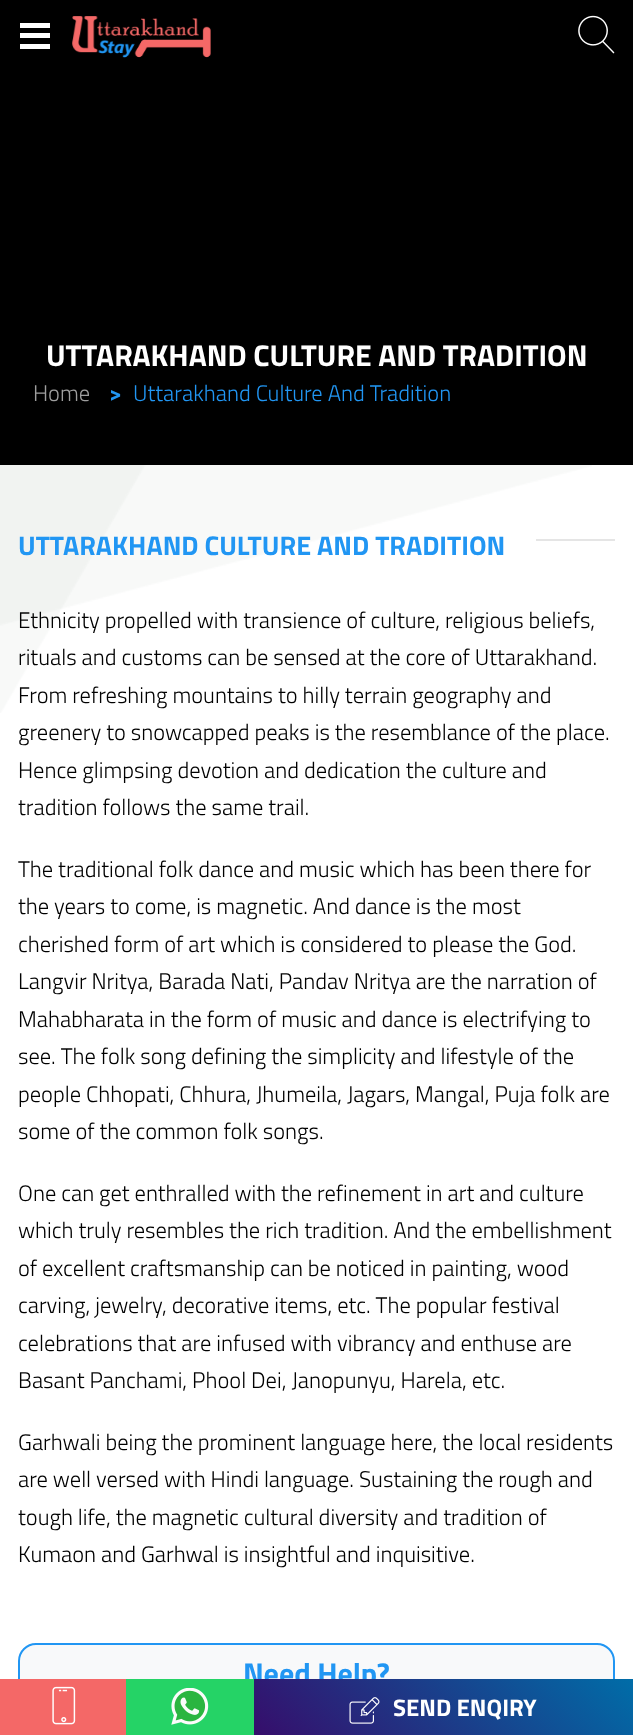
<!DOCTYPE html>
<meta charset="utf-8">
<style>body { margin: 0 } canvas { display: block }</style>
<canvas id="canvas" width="633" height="1735"></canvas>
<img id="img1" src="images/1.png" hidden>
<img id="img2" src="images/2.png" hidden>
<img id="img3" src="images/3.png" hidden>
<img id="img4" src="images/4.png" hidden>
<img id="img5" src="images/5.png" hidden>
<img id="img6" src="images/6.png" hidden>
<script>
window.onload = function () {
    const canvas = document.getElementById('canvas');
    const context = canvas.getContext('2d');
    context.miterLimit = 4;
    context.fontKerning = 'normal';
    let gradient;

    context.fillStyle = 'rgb(255, 255, 255)';
    context.fillRect(0, 0, 633, 1735);
    context.fillStyle = 'rgb(0, 0, 0)';
    context.fillRect(0, 0, 633, 465);
    context.fillStyle = 'rgb(255, 255, 255)';
    context.fillRect(20, 23, 30, 5);
    context.fillRect(20, 33, 30, 5);
    context.fillRect(20, 44, 30, 5);
    context.drawImage(document.getElementById('img1'), 72, 16, 139, 42);
    context.drawImage(document.getElementById('img2'), 578, 15, 37, 39);
    context.drawImage(document.getElementById('img3'), 0, 465, 592, 248);
    context.fillStyle = 'rgb(229, 229, 229)';
    context.fillRect(536, 539, 79, 2);
    context.fillStyle = 'rgb(248, 249, 250)';
    context.beginPath();
    context.roundRect(19, 1644, 595, 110, 17);
    context.fill();
    context.strokeStyle = 'rgb(33, 150, 243)';
    context.lineWidth = 2;
    context.stroke();
    context.fillStyle = 'rgb(244, 104, 103)';
    context.fillRect(0, 1679, 126, 56);
    context.drawImage(document.getElementById('img4'), 52, 1686, 24, 39);
    context.font = 'bold 30px Titillium Web';
    context.fillStyle = 'rgb(255, 255, 255)';
    context.fillText('UTTARAKHAND CULTURE AND TRADITION', 46, 366);
    context.font = '300 22.5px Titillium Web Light';
    context.fillStyle = 'rgb(158, 158, 158)';
    context.fillText('Home', 33, 401);
    context.font = 'bold 22.5px Titillium Web';
    context.fillStyle = 'rgb(33, 150, 243)';
    context.fillText('>', 109, 401);
    context.font = '300 22.5px Titillium Web Light';
    context.fillText('Uttarakhand Culture And Tradition', 133, 401);
    context.font = 'bold 27px Titillium Web';
    context.fillText('UTTARAKHAND CULTURE AND TRADITION', 18, 555);
    context.font = '300 22.5px Titillium Web Light';
    context.fillStyle = 'rgb(0, 0, 0)';
    context.fillText('Ethnicity propelled with transience of culture, religious beliefs,', 18, 628);
    context.fillText('rituals and customs can be sensed at the core of Uttarakhand.', 18, 665);
    context.fillText('From refreshing mountains to hilly terrain geography and', 18, 703);
    context.fillText('greenery to snowcapped peaks is the resemblance of the place.', 18, 740);
    context.fillText('Hence glimpsing devotion and dedication the culture and', 18, 778);
    context.fillText('tradition follows the same trail.', 18, 815);
    context.fillText('The traditional folk dance and music which has been there for', 18, 877);
    context.fillText('the years to come, is magnetic. And dance is the most', 18, 914);
    context.fillText('cherished form of art which is considered to please the God.', 18, 952);
    context.fillText('Langvir Nritya, Barada Nati, Pandav Nritya are the narration of', 18, 989);
    context.fillText('Mahabharata in the form of music and dance is electrifying to', 18, 1027);
    context.fillText('see. The folk song defining the simplicity and lifestyle of the', 18, 1064);
    context.fillText('people Chhopati, Chhura, Jhumeila, Jagars, Mangal, Puja folk are', 18, 1102);
    context.fillText('some of the common folk songs.', 18, 1139);
    context.fillText('One can get enthralled with the refinement in art and culture', 18, 1201);
    context.fillText('which truly resembles the rich tradition. And the embellishment', 18, 1238);
    context.fillText('of excellent craftsmanship can be noticed in painting, wood', 18, 1276);
    context.fillText('carving, jewelry, decorative items, etc. The popular festival', 18, 1313);
    context.fillText('celebrations that are infused with vibrancy and enthuse are', 18, 1351);
    context.fillText('Basant Panchami, Phool Dei, Janopunyu, Harela, etc.', 18, 1388);
    context.fillText('Garhwali being the prominent language here, the local residents', 18, 1450);
    context.fillText('are well versed with Hindi language. Sustaining the rough and', 18, 1487);
    context.fillText('tough life, the magnetic cultural diversity and tradition of', 18, 1525);
    context.fillText('Kumaon and Garhwal is insightful and inquisitive.', 18, 1562);
    context.font = 'bold 30px Titillium Web';
    context.fillStyle = 'rgb(33, 150, 243)';
    context.fillText('Need Help?', 243, 1684);
    context.fillStyle = 'rgb(37, 211, 102)';
    context.fillRect(126, 1679, 128, 56);
    context.drawImage(document.getElementById('img5'), 171, 1688, 38, 37);
    gradient = context.createLinearGradient(334, 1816, 552, 1598);
    gradient.addColorStop(0, 'rgb(54, 13, 107)');
    gradient.addColorStop(1, 'rgb(0, 109, 168)');
    context.fillStyle = gradient;
    context.fillRect(254, 1679, 379, 56);
    context.drawImage(document.getElementById('img6'), 349, 1697, 31, 27);
    context.font = 'bold 24px Titillium Web';
    context.fillStyle = 'rgb(255, 255, 255)';
    context.fillText('SEND ENQIRY', 393, 1716);
};
</script>
